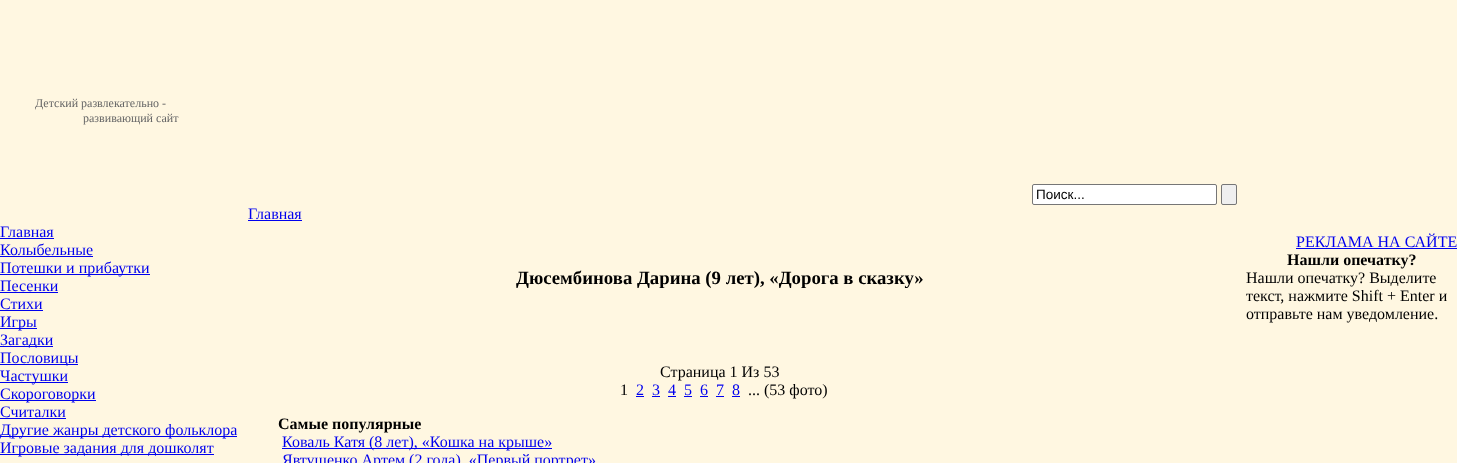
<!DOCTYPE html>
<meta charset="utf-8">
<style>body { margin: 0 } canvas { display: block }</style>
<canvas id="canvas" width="1457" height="463"></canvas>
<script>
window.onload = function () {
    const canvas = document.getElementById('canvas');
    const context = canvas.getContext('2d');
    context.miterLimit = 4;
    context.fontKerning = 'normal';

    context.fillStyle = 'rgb(255, 247, 225)';
    context.fillRect(0, 0, 1457, 463);
    context.fillStyle = 'rgb(255, 255, 255)';
    context.beginPath();
    context.roundRect(1032.5, 184.5, 184, 20, 1.5);
    context.fill();
    context.strokeStyle = 'rgb(118, 118, 118)';
    context.stroke();
    context.fillStyle = 'rgb(239, 239, 239)';
    context.beginPath();
    context.roundRect(1221.5, 184.5, 15, 20, 1.5);
    context.fill();
    context.stroke();
    context.fillStyle = 'rgb(0, 0, 238)';
    context.fillRect(0, 238, 54, 1);
    context.fillRect(0, 256, 93, 1);
    context.fillRect(0, 274, 150, 1);
    context.fillRect(0, 292, 58, 1);
    context.fillRect(0, 310, 43, 1);
    context.fillRect(0, 328, 37, 1);
    context.fillRect(0, 346, 53, 1);
    context.fillRect(0, 364, 78, 1);
    context.fillRect(0, 382, 68, 1);
    context.fillRect(0, 400, 96, 1);
    context.fillRect(0, 418, 66, 1);
    context.fillRect(0, 436, 237, 1);
    context.fillRect(0, 454, 214, 1);
    context.fillRect(248, 220, 54, 1);
    context.fillRect(636, 396, 8, 1);
    context.fillRect(652, 396, 8, 1);
    context.fillRect(668, 396, 8, 1);
    context.fillRect(684, 396, 8, 1);
    context.fillRect(700, 396, 8, 1);
    context.fillRect(716, 396, 8, 1);
    context.fillRect(732, 396, 8, 1);
    context.fillRect(282, 448, 270, 1);
    context.fillRect(1296, 248, 161, 1);
    context.font = '12px Liberation Serif';
    context.fillStyle = 'rgb(102, 102, 102)';
    context.fillText('Детский развлекательно -', 35, 107);
    context.fillText('развивающий сайт', 83, 122);
    context.font = '13.5px Liberation Sans';
    context.fillStyle = 'rgb(0, 0, 0)';
    context.fillText('Поиск...', 1036, 199);
    context.font = '16px Liberation Serif';
    context.fillStyle = 'rgb(0, 0, 238)';
    context.fillText('Главная', 0, 237);
    context.fillText('Колыбельные', 0, 255);
    context.fillText('Потешки и прибаутки', 0, 273);
    context.fillText('Песенки', 0, 291);
    context.fillText('Стихи', 0, 309);
    context.fillText('Игры', 0, 327);
    context.fillText('Загадки', 0, 345);
    context.fillText('Пословицы', 0, 363);
    context.fillText('Частушки', 0, 381);
    context.fillText('Скороговорки', 0, 399);
    context.fillText('Считалки', 0, 417);
    context.fillText('Другие жанры детского фольклора', 0, 435);
    context.fillText('Игровые задания для дошколят', 0, 453);
    context.fillText('Главная', 248, 219);
    context.font = 'bold 18.75px Liberation Serif';
    context.fillStyle = 'rgb(0, 0, 0)';
    context.fillText('Дюсембинова Дарина (9 лет), «Дорога в сказку»', 516, 284);
    context.font = '16px Liberation Serif';
    context.fillText('Страница 1 Из 53', 660, 377);
    context.fillText('1', 620, 395);
    context.fillStyle = 'rgb(0, 0, 238)';
    context.fillText('2', 636, 395);
    context.fillText('3', 652, 395);
    context.fillText('4', 668, 395);
    context.fillText('5', 684, 395);
    context.fillText('6', 700, 395);
    context.fillText('7', 716, 395);
    context.fillText('8', 732, 395);
    context.fillStyle = 'rgb(0, 0, 0)';
    context.fillText('... (53 фото)', 748, 395);
    context.font = 'bold 16px Liberation Serif';
    context.fillText('Самые популярные', 278, 429);
    context.font = '16px Liberation Serif';
    context.fillStyle = 'rgb(0, 0, 238)';
    context.fillText('Коваль Катя (8 лет), «Кошка на крыше»', 282, 447);
    context.fillText('Явтушенко Артем (2 года), «Первый портрет»', 282, 465);
    context.fillText('РЕКЛАМА НА САЙТЕ', 1296, 247);
    context.font = 'bold 16px Liberation Serif';
    context.fillStyle = 'rgb(0, 0, 0)';
    context.fillText('Нашли опечатку?', 1287, 265);
    context.font = '16px Liberation Serif';
    context.fillText('Нашли опечатку? Выделите', 1246, 283);
    context.fillText('текст, нажмите Shift + Enter и', 1246, 301);
    context.fillText('отправьте нам уведомление.', 1246, 319);
};
</script>
